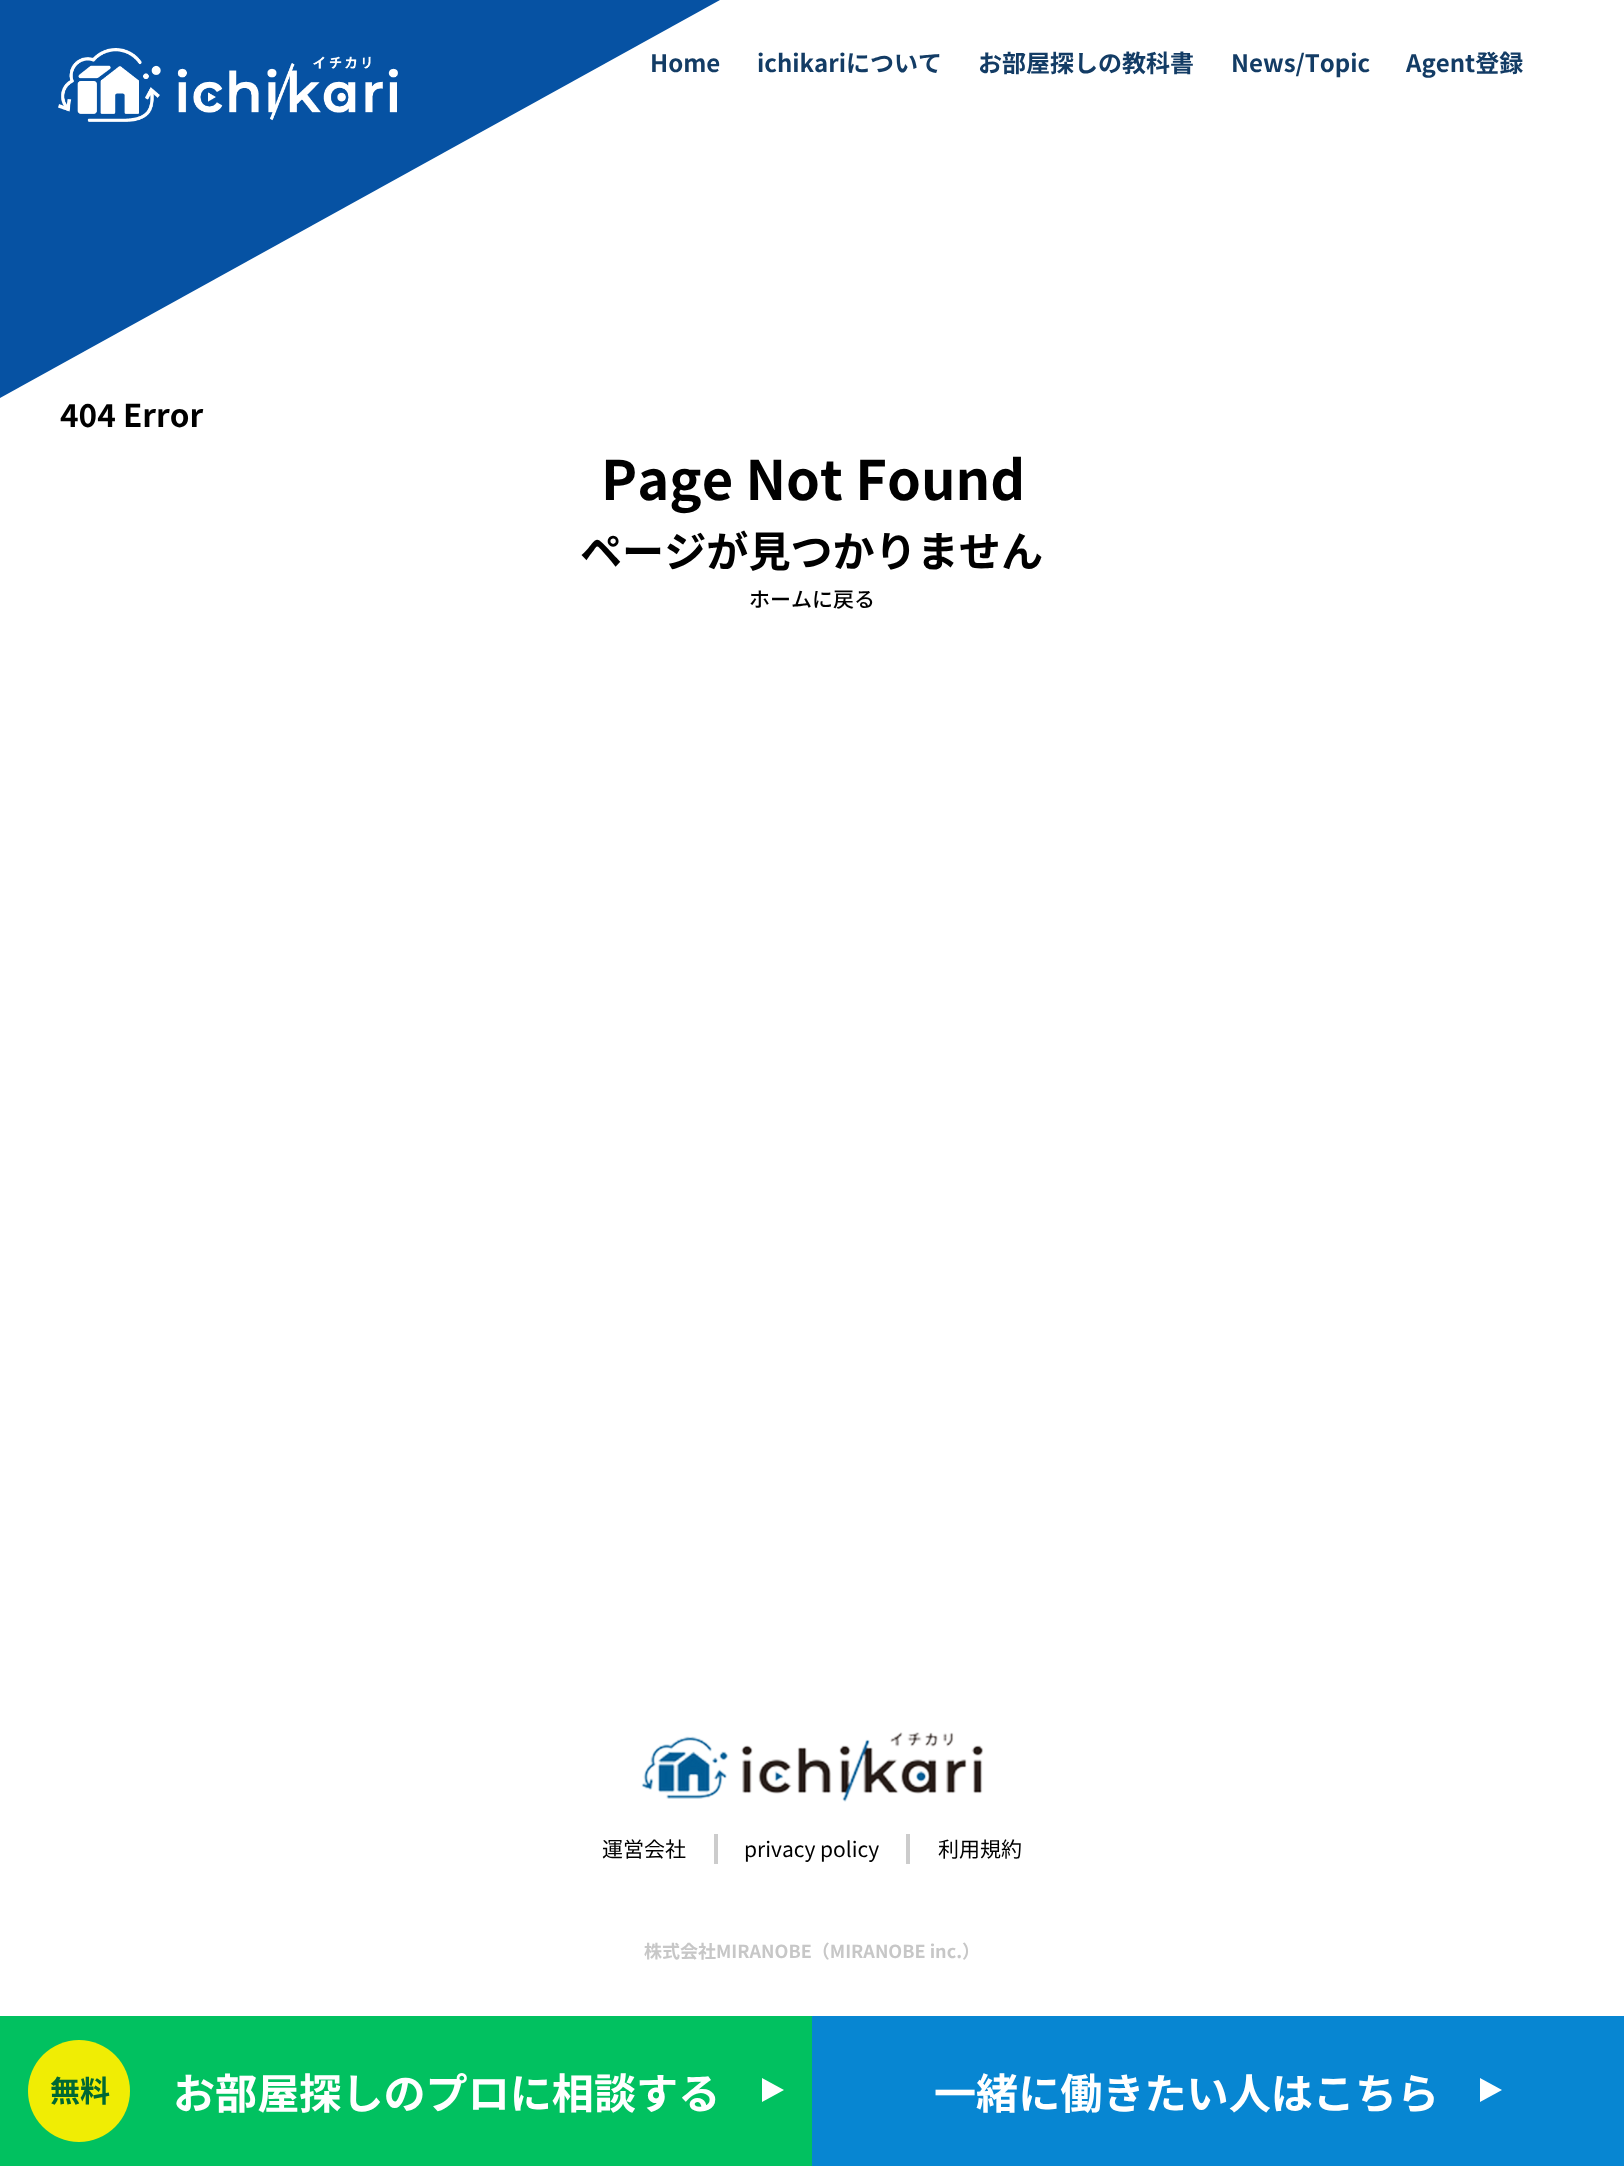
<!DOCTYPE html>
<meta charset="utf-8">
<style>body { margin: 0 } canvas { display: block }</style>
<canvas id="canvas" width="1624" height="2166"></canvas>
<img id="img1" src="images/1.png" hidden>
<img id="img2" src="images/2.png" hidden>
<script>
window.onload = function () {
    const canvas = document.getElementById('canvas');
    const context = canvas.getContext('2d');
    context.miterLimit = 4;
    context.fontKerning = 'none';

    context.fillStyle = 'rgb(255, 255, 255)';
    context.fillRect(0, 0, 1624, 2166);
    context.fillStyle = 'rgb(6, 82, 163)';
    context.beginPath();
    context.moveTo(0, 0);
    context.lineTo(720, 0);
    context.lineTo(0, 398);
    context.closePath();
    context.fill();
    context.drawImage(document.getElementById('img1'), 58, 48, 340, 74);
    context.drawImage(document.getElementById('img2'), 641, 1732, 343, 70);
    context.fillStyle = 'rgb(204, 204, 204)';
    context.fillRect(714, 1834, 4, 30);
    context.fillRect(906, 1834, 4, 30);
    context.fillStyle = 'rgb(1, 193, 96)';
    context.fillRect(0, 2016, 812, 150);
    context.fillStyle = 'rgb(240, 237, 4)';
    context.beginPath();
    context.arc(79, 2091, 51, 0, 2 * Math.PI);
    context.fill();
    context.fillStyle = 'rgb(255, 255, 255)';
    context.beginPath();
    context.moveTo(762, 2102);
    context.lineTo(762, 2078);
    context.lineTo(784, 2090);
    context.closePath();
    context.fill();
    context.fillStyle = 'rgb(7, 134, 210)';
    context.fillRect(812, 2016, 812, 150);
    context.fillStyle = 'rgb(255, 255, 255)';
    context.beginPath();
    context.moveTo(1480, 2102);
    context.lineTo(1480, 2078);
    context.lineTo(1502, 2090);
    context.closePath();
    context.fill();
    context.font = 'bold 24px Noto Sans JP';
    context.fillStyle = 'rgb(19, 60, 101)';
    context.fillText('Home', 650, 72);
    context.fillText('ichikariについて', 757, 72);
    context.fillText('お部屋探しの教科書', 978, 72);
    context.fillText('News/Topic', 1231, 72);
    context.fillText('Agent登録', 1406, 72);
    context.font = 'bold 31.5px Noto Sans JP';
    context.fillStyle = 'rgb(0, 0, 0)';
    context.fillText('404 Error', 60, 427);
    context.font = 'bold 54.25px Noto Sans JP';
    context.fillText('Page Not Found', 601, 500);
    context.font = 'bold 42.1px Noto Sans JP';
    context.fillText('ページが見つかりません', 580, 567);
    context.font = '500 21px Noto Sans JP';
    context.fillText('ホームに戻る', 749, 607);
    context.font = '21px Noto Sans JP';
    context.fillText('運営会社', 602, 1857);
    context.fillText('privacy policy', 744, 1857);
    context.fillText('利用規約', 938, 1857);
    context.font = 'bold 18px Noto Sans JP';
    context.fillStyle = 'rgb(199, 199, 199)';
    context.fillText('株式会社MIRANOBE（MIRANOBE inc.）', 644, 1958);
    context.font = 'bold 30px Noto Sans JP';
    context.fillStyle = 'rgb(0, 104, 52)';
    context.fillText('無料', 50, 2102);
    context.font = 'bold 42.1px Noto Sans JP';
    context.fillStyle = 'rgb(255, 255, 255)';
    context.fillText('お部屋探しのプロに相談する', 173, 2109);
    context.fillText('一緒に働きたい人はこちら', 934, 2109);
};
</script>
